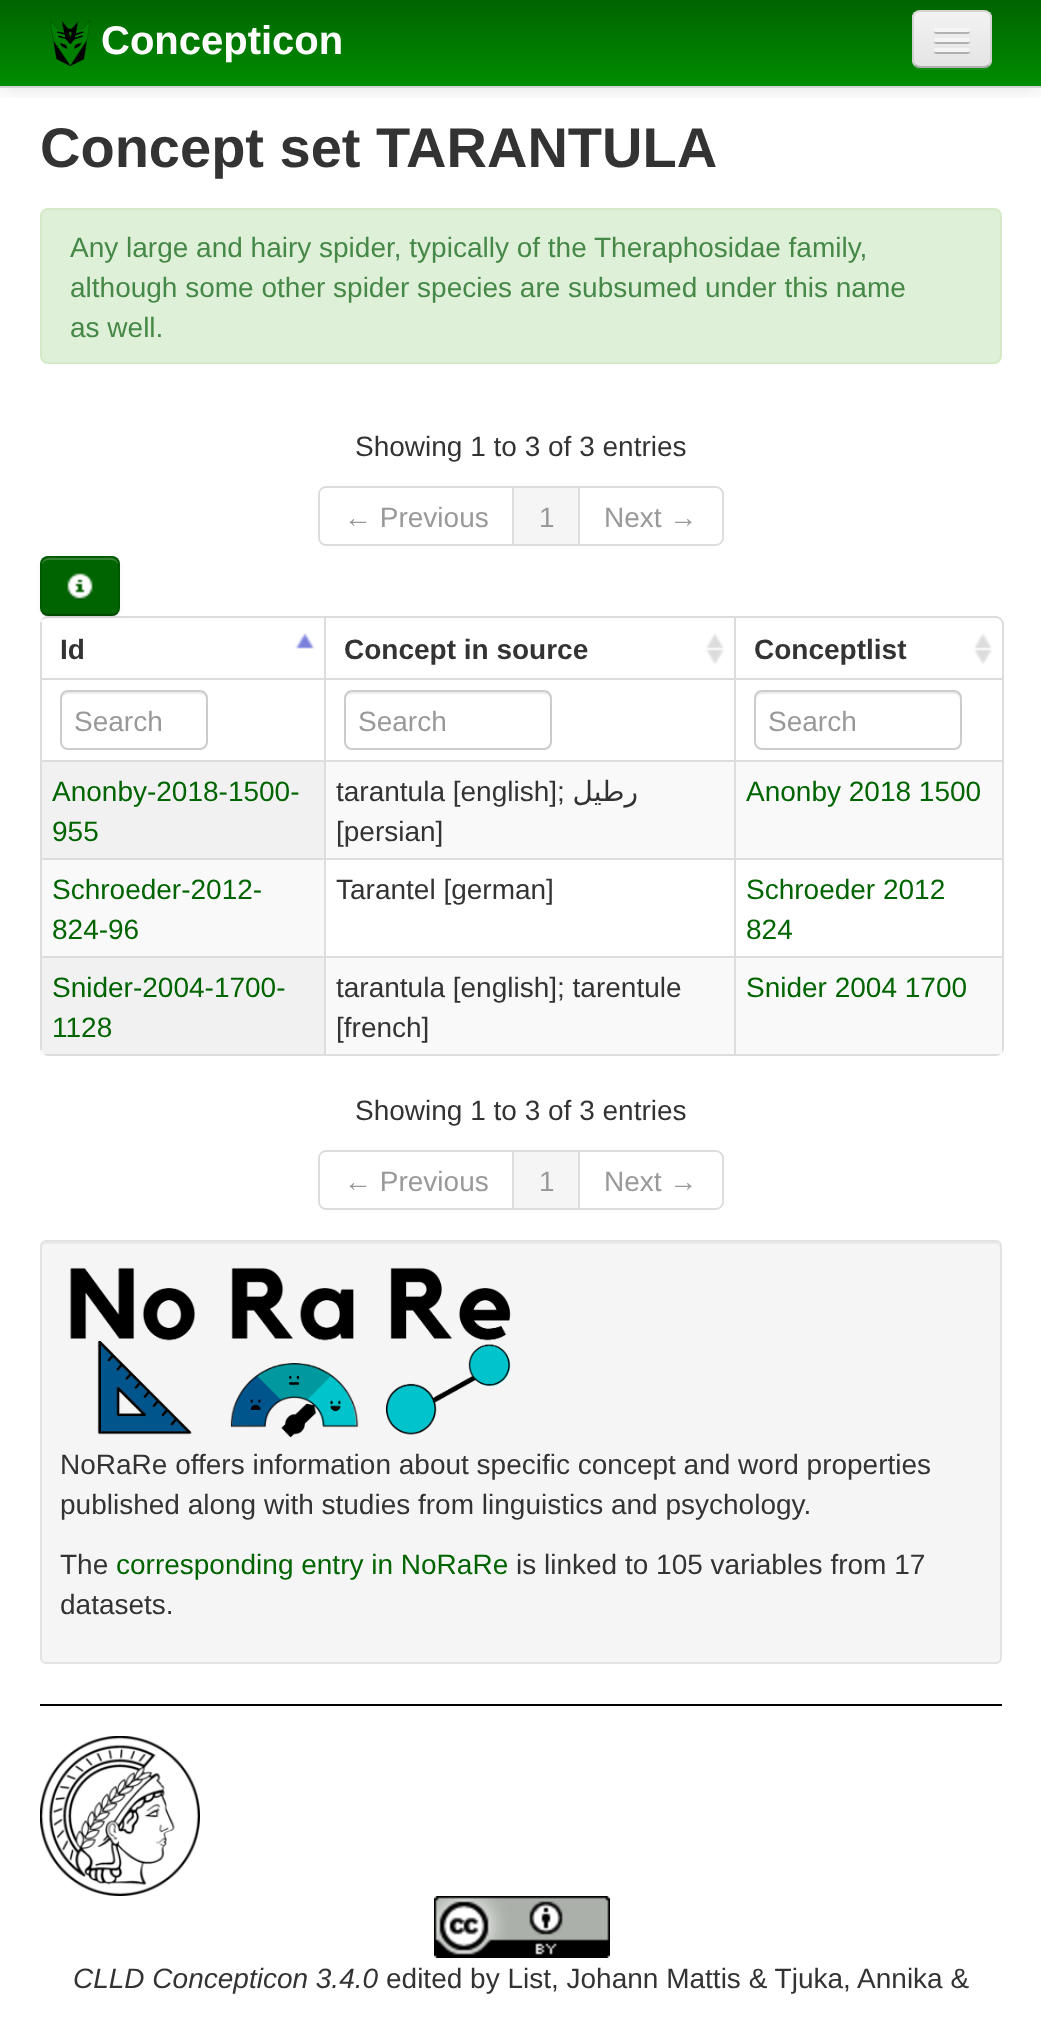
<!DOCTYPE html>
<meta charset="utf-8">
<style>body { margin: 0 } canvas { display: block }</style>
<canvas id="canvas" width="1041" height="2022"></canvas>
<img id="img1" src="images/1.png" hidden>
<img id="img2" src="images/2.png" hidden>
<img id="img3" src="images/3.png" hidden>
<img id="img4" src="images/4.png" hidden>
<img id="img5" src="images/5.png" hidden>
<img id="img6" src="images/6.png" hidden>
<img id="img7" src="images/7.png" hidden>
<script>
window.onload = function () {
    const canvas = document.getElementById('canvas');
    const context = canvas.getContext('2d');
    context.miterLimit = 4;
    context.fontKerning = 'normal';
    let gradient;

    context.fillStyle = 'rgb(255, 255, 255)';
    context.fillRect(0, 0, 1041, 2022);
    gradient = context.createLinearGradient(521, 0, 521, 88);
    gradient.addColorStop(0, 'rgb(0, 100, 0)');
    gradient.addColorStop(1, 'rgb(0, 142, 0)');
    context.fillStyle = gradient;
    context.fillRect(0, 0, 1041, 86);
    context.save();
    context.beginPath();
    context.rect(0, 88, 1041, 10);
    context.clip();
    context.fillStyle = 'rgba(0, 0, 0, 0.1)';
    context.filter = 'blur(10px)';
    context.beginPath();
    context.rect(0, 2, 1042, 88);
    context.fill();
    context.filter = 'none';
    context.restore();
    context.fillStyle = 'rgb(212, 212, 212)';
    context.fillRect(0, 86, 1041, 2);
    context.drawImage(document.getElementById('img1'), 50, 20, 40, 46);
    context.fillStyle = 'rgba(255, 255, 255, 0.07)';
    context.beginPath();
    context.moveTo(912, 60);
    context.bezierCurveTo(912, 72, 921, 70, 931, 70);
    context.lineTo(973, 70);
    context.bezierCurveTo(983, 70, 992, 72, 992, 60);
    context.bezierCurveTo(992, 64, 988, 68, 984, 68);
    context.lineTo(920, 68);
    context.bezierCurveTo(916, 68, 912, 64, 912, 60);
    context.closePath();
    context.fill();
    context.fillStyle = 'rgb(237, 237, 237)';
    context.beginPath();
    context.roundRect(912, 10, 80, 58, 8);
    context.fill();
    context.save();
    context.beginPath();
    context.roundRect(912, 10, 80, 58, 8);
    context.clip();
    gradient = context.createLinearGradient(952, 12, 952, 66);
    gradient.addColorStop(0, 'rgb(242, 242, 242)');
    gradient.addColorStop(1, 'rgb(229, 229, 229)');
    context.fillStyle = gradient;
    context.fillRect(912, 12, 80, 54);
    context.restore();
    context.beginPath();
    context.moveTo(989, 65);
    context.bezierCurveTo(987.5, 66.5, 986, 67, 984, 67);
    context.lineTo(920, 67);
    context.bezierCurveTo(918, 67, 916.5, 66.5, 915, 65);
    context.strokeStyle = 'rgba(0, 0, 0, 0.25)';
    context.lineWidth = 2;
    context.stroke();
    context.beginPath();
    context.moveTo(915, 65);
    context.bezierCurveTo(913.5, 63.5, 913, 62, 913, 60);
    context.lineTo(913, 18);
    context.bezierCurveTo(913, 16, 913.5, 14.5, 915, 13);
    context.bezierCurveTo(916.5, 11.5, 918, 11, 920, 11);
    context.lineTo(984, 11);
    context.bezierCurveTo(986, 11, 987.5, 11.5, 989, 13);
    context.bezierCurveTo(990.5, 14.5, 991, 16, 991, 18);
    context.lineTo(991, 60);
    context.bezierCurveTo(991, 62, 990.5, 63.5, 989, 65);
    context.strokeStyle = 'rgba(0, 0, 0, 0.1)';
    context.stroke();
    context.fillStyle = 'rgb(178, 178, 178)';
    context.beginPath();
    context.moveTo(934.5, 31);
    context.bezierCurveTo(932, 35, 941, 34, 941.5, 34);
    context.lineTo(962.5, 34);
    context.bezierCurveTo(963, 34, 972, 35, 969.5, 31);
    context.bezierCurveTo(969.5, 31.5, 968.5, 32, 968, 32);
    context.lineTo(936, 32);
    context.bezierCurveTo(935.5, 32, 934.5, 31.5, 934.5, 31);
    context.closePath();
    context.fill();
    context.fillStyle = 'rgb(245, 245, 245)';
    context.beginPath();
    context.roundRect(934, 28, 36, 4, 2);
    context.fill();
    context.fillStyle = 'rgb(176, 176, 176)';
    context.beginPath();
    context.moveTo(934.5, 41);
    context.bezierCurveTo(932, 45, 941, 44, 941.5, 44);
    context.lineTo(962.5, 44);
    context.bezierCurveTo(963, 44, 972, 45, 969.5, 41);
    context.bezierCurveTo(969.5, 41.5, 968.5, 42, 968, 42);
    context.lineTo(936, 42);
    context.bezierCurveTo(935.5, 42, 934.5, 41.5, 934.5, 41);
    context.closePath();
    context.fill();
    context.fillStyle = 'rgb(245, 245, 245)';
    context.beginPath();
    context.roundRect(934, 38, 36, 4, 2);
    context.fill();
    context.fillStyle = 'rgb(174, 174, 174)';
    context.beginPath();
    context.moveTo(934.5, 51);
    context.bezierCurveTo(932, 55, 941, 54, 941.5, 54);
    context.lineTo(962.5, 54);
    context.bezierCurveTo(963, 54, 972, 55, 969.5, 51);
    context.bezierCurveTo(969.5, 51.5, 968.5, 52, 968, 52);
    context.lineTo(936, 52);
    context.bezierCurveTo(935.5, 52, 934.5, 51.5, 934.5, 51);
    context.closePath();
    context.fill();
    context.fillStyle = 'rgb(245, 245, 245)';
    context.beginPath();
    context.roundRect(934, 48, 36, 4, 2);
    context.fill();
    context.fillStyle = 'rgb(223, 240, 216)';
    context.beginPath();
    context.roundRect(41, 209, 960, 154, 7);
    context.fill();
    context.strokeStyle = 'rgb(214, 233, 198)';
    context.stroke();
    context.beginPath();
    context.roundRect(319, 487, 194, 58, [7, 0, 0, 7]);
    context.strokeStyle = 'rgb(221, 221, 221)';
    context.stroke();
    context.fillStyle = 'rgb(245, 245, 245)';
    context.fillRect(514, 488, 64, 56);
    context.fillStyle = 'rgb(221, 221, 221)';
    context.fillRect(514, 486, 66, 2);
    context.fillRect(578, 486, 2, 60);
    context.fillRect(514, 544, 66, 2);
    context.beginPath();
    context.moveTo(580, 486);
    context.lineTo(716, 486);
    context.bezierCurveTo(720, 486, 724, 490, 724, 494);
    context.lineTo(724, 538);
    context.bezierCurveTo(724, 542, 720, 546, 716, 546);
    context.lineTo(580, 546);
    context.closePath();
    context.moveTo(580, 488);
    context.lineTo(716, 488);
    context.bezierCurveTo(719, 488, 722, 491, 722, 494);
    context.lineTo(722, 538);
    context.bezierCurveTo(722, 541, 719, 544, 716, 544);
    context.lineTo(580, 544);
    context.closePath();
    context.fill('evenodd');
    context.beginPath();
    context.moveTo(48, 616);
    context.lineTo(996, 616);
    context.bezierCurveTo(1000, 616, 1004, 620, 1004, 624);
    context.lineTo(1004, 1048);
    context.bezierCurveTo(1004, 1052, 1000, 1056, 996, 1056);
    context.lineTo(48, 1056);
    context.bezierCurveTo(44, 1056, 40, 1052, 40, 1048);
    context.lineTo(40, 624);
    context.bezierCurveTo(40, 620, 44, 616, 48, 616);
    context.closePath();
    context.moveTo(48, 618);
    context.lineTo(996, 618);
    context.bezierCurveTo(999, 618, 1002, 621, 1002, 624);
    context.lineTo(1002, 1048);
    context.bezierCurveTo(1002, 1051, 999, 1054, 996, 1054);
    context.lineTo(48, 1054);
    context.bezierCurveTo(44, 1054, 40, 1051, 40, 1048);
    context.lineTo(40, 624);
    context.bezierCurveTo(40, 621, 44, 618, 48, 618);
    context.closePath();
    context.fill('evenodd');
    context.fillRect(40, 622, 2, 56);
    context.fillStyle = 'rgba(0, 0, 0, 0.05)';
    context.filter = 'blur(2px)';
    context.beginPath();
    context.roundRect(40, 558, 80, 60, 8);
    context.fill();
    context.filter = 'none';
    context.fillStyle = 'rgb(0, 100, 0)';
    context.beginPath();
    context.roundRect(40, 556, 80, 60, 8);
    context.fill();
    context.fillStyle = 'rgb(51, 131, 51)';
    context.beginPath();
    context.moveTo(48, 560);
    context.lineTo(112, 560);
    context.bezierCurveTo(115, 560, 118, 563, 118, 566);
    context.bezierCurveTo(118, 556, 110, 558, 101, 558);
    context.lineTo(59, 558);
    context.bezierCurveTo(50, 558, 42, 556, 42, 566);
    context.bezierCurveTo(42, 563, 45, 560, 48, 560);
    context.closePath();
    context.fill();
    context.beginPath();
    context.moveTo(117, 613);
    context.bezierCurveTo(115.5, 614.5, 114, 615, 112, 615);
    context.lineTo(48, 615);
    context.bezierCurveTo(46, 615, 44.5, 614.5, 43, 613);
    context.strokeStyle = 'rgba(0, 0, 0, 0.25)';
    context.stroke();
    context.beginPath();
    context.moveTo(43, 613);
    context.bezierCurveTo(41.5, 611.5, 41, 610, 41, 608);
    context.lineTo(41, 564);
    context.bezierCurveTo(41, 562, 41.5, 560.5, 43, 559);
    context.bezierCurveTo(44.5, 557.5, 46, 557, 48, 557);
    context.lineTo(112, 557);
    context.bezierCurveTo(114, 557, 115.5, 557.5, 117, 559);
    context.bezierCurveTo(118.5, 560.5, 119, 562, 119, 564);
    context.lineTo(119, 608);
    context.bezierCurveTo(119, 610, 118.5, 611.5, 117, 613);
    context.strokeStyle = 'rgba(0, 0, 0, 0.1)';
    context.stroke();
    context.drawImage(document.getElementById('img2'), 67, 573, 26, 27);
    context.drawImage(document.getElementById('img3'), 295, 633, 20, 16);
    context.drawImage(document.getElementById('img4'), 706, 633, 18, 32);
    context.fillStyle = 'rgb(221, 221, 221)';
    context.fillRect(324, 618, 2, 60);
    context.drawImage(document.getElementById('img4'), 974, 633, 18, 32);
    context.fillRect(734, 618, 2, 60);
    context.fillRect(40, 678, 962, 2);
    context.fillRect(40, 678, 2, 82);
    context.fillStyle = 'rgb(236, 236, 236)';
    context.beginPath();
    context.moveTo(68, 694);
    context.lineTo(200, 694);
    context.bezierCurveTo(203, 694, 206, 697, 206, 700);
    context.lineTo(206, 698);
    context.bezierCurveTo(206, 695, 203, 692, 200, 692);
    context.lineTo(68, 692);
    context.bezierCurveTo(65, 692, 62, 695, 62, 698);
    context.lineTo(62, 700);
    context.bezierCurveTo(62, 697, 65, 694, 68, 694);
    context.closePath();
    context.fill();
    context.beginPath();
    context.roundRect(61, 691, 146, 58, 7);
    context.strokeStyle = 'rgb(204, 204, 204)';
    context.stroke();
    context.fillStyle = 'rgb(221, 221, 221)';
    context.fillRect(324, 678, 2, 82);
    context.fillStyle = 'rgb(236, 236, 236)';
    context.beginPath();
    context.moveTo(352, 694);
    context.lineTo(544, 694);
    context.bezierCurveTo(547, 694, 550, 697, 550, 700);
    context.lineTo(550, 698);
    context.bezierCurveTo(550, 695, 547, 692, 544, 692);
    context.lineTo(352, 692);
    context.bezierCurveTo(349, 692, 346, 695, 346, 698);
    context.lineTo(346, 700);
    context.bezierCurveTo(346, 697, 349, 694, 352, 694);
    context.closePath();
    context.fill();
    context.beginPath();
    context.roundRect(345, 691, 206, 58, 7);
    context.stroke();
    context.fillStyle = 'rgb(221, 221, 221)';
    context.fillRect(734, 678, 2, 82);
    context.fillStyle = 'rgb(236, 236, 236)';
    context.beginPath();
    context.moveTo(762, 694);
    context.lineTo(954, 694);
    context.bezierCurveTo(957, 694, 960, 697, 960, 700);
    context.lineTo(960, 698);
    context.bezierCurveTo(960, 695, 957, 692, 954, 692);
    context.lineTo(762, 692);
    context.bezierCurveTo(759, 692, 756, 695, 756, 698);
    context.lineTo(756, 700);
    context.bezierCurveTo(756, 697, 759, 694, 762, 694);
    context.closePath();
    context.fill();
    context.beginPath();
    context.roundRect(755, 691, 206, 58, 7);
    context.stroke();
    context.fillStyle = 'rgb(249, 249, 249)';
    context.fillRect(326, 762, 676, 96);
    context.fillStyle = 'rgb(241, 241, 241)';
    context.fillRect(42, 762, 282, 96);
    context.fillStyle = 'rgb(221, 221, 221)';
    context.fillRect(40, 760, 962, 2);
    context.fillRect(40, 760, 2, 98);
    context.fillRect(324, 760, 2, 98);
    context.fillRect(734, 760, 2, 98);
    context.fillStyle = 'rgb(249, 249, 249)';
    context.fillRect(42, 860, 282, 96);
    context.fillStyle = 'rgb(221, 221, 221)';
    context.fillRect(40, 858, 962, 2);
    context.fillRect(40, 858, 2, 98);
    context.fillRect(324, 858, 2, 98);
    context.fillRect(734, 858, 2, 98);
    context.fillStyle = 'rgb(249, 249, 249)';
    context.fillRect(40, 958, 962, 96);
    context.fillStyle = 'rgb(241, 241, 241)';
    context.beginPath();
    context.roundRect(40, 956, 284, 98, [0, 0, 0, 8]);
    context.fill();
    context.fillStyle = 'rgb(221, 221, 221)';
    context.fillRect(40, 956, 962, 2);
    context.fillRect(40, 956, 2, 94);
    context.fillRect(324, 956, 2, 98);
    context.fillRect(734, 956, 2, 98);
    context.beginPath();
    context.roundRect(319, 1151, 194, 58, [7, 0, 0, 7]);
    context.strokeStyle = 'rgb(221, 221, 221)';
    context.stroke();
    context.fillStyle = 'rgb(245, 245, 245)';
    context.fillRect(514, 1152, 64, 56);
    context.fillStyle = 'rgb(221, 221, 221)';
    context.fillRect(514, 1150, 66, 2);
    context.fillRect(578, 1150, 2, 60);
    context.fillRect(514, 1208, 66, 2);
    context.beginPath();
    context.moveTo(580, 1150);
    context.lineTo(716, 1150);
    context.bezierCurveTo(720, 1150, 724, 1154, 724, 1158);
    context.lineTo(724, 1202);
    context.bezierCurveTo(724, 1206, 720, 1210, 716, 1210);
    context.lineTo(580, 1210);
    context.closePath();
    context.moveTo(580, 1152);
    context.lineTo(716, 1152);
    context.bezierCurveTo(719, 1152, 722, 1155, 722, 1158);
    context.lineTo(722, 1202);
    context.bezierCurveTo(722, 1205, 719, 1208, 716, 1208);
    context.lineTo(580, 1208);
    context.closePath();
    context.fill('evenodd');
    context.fillStyle = 'rgb(245, 245, 245)';
    context.beginPath();
    context.roundRect(40, 1240, 962, 424, 6);
    context.fill();
    context.fillStyle = 'rgb(233, 233, 233)';
    context.beginPath();
    context.moveTo(46, 1244);
    context.lineTo(996, 1244);
    context.bezierCurveTo(998, 1244, 1000, 1246, 1000, 1248);
    context.lineTo(1000, 1246);
    context.bezierCurveTo(1000, 1244, 998, 1242, 996, 1242);
    context.lineTo(46, 1242);
    context.bezierCurveTo(44, 1242, 42, 1244, 42, 1246);
    context.lineTo(42, 1248);
    context.bezierCurveTo(42, 1246, 44, 1244, 46, 1244);
    context.closePath();
    context.fill();
    context.beginPath();
    context.roundRect(41, 1241, 960, 422, 5);
    context.strokeStyle = 'rgb(227, 227, 227)';
    context.stroke();
    context.drawImage(document.getElementById('img5'), 70, 1267, 441, 171);
    context.fillStyle = 'rgb(0, 0, 0)';
    context.fillRect(40, 1704, 962, 2);
    context.drawImage(document.getElementById('img6'), 40, 1736, 160, 160);
    context.drawImage(document.getElementById('img7'), 434, 1896, 176, 62);
    context.font = 'bold 40px Liberation Sans';
    context.fillStyle = 'rgb(255, 255, 255)';
    context.fillText('Concepticon', 101, 54);
    context.font = 'bold 56px Liberation Sans';
    context.fillStyle = 'rgb(51, 51, 51)';
    context.fillText('Concept set TARANTULA', 40, 167);
    context.font = '28px Liberation Sans';
    context.fillStyle = 'rgb(70, 136, 71)';
    context.fillText('Any large and hairy spider, typically of the Theraphosidae family,', 70, 257);
    context.fillText('although some other spider species are subsumed under this name', 70, 297);
    context.fillText('as well.', 70, 337);
    context.fillStyle = 'rgb(51, 51, 51)';
    context.fillText('Showing 1 to 3 of 3 entries', 355, 456);
    context.fillStyle = 'rgb(153, 153, 153)';
    context.fillText('← Previous', 344, 527);
    context.fillText('1', 539, 527);
    context.fillText('Next →', 604, 527);
    context.font = 'bold 28px Liberation Sans';
    context.fillStyle = 'rgb(51, 51, 51)';
    context.fillText('Id', 60, 659);
    context.fillText('Concept in source', 344, 659);
    context.fillText('Conceptlist', 754, 659);
    context.font = '28px Liberation Sans';
    context.fillStyle = 'rgb(153, 153, 153)';
    context.fillText('Search', 74, 731);
    context.fillText('Search', 358, 731);
    context.fillText('Search', 768, 731);
    context.fillStyle = 'rgb(0, 100, 0)';
    context.fillText('Anonby-2018-1500-', 52, 801);
    context.fillText('955', 52, 841);
    context.fillStyle = 'rgb(51, 51, 51)';
    context.fillText('tarantula [english];', 336, 801);
    context.direction = 'rtl';
    context.font = '28px DejaVu Sans';
    context.fillText('رطیل', 638, 801);
    context.direction = 'ltr';
    context.font = '28px Liberation Sans';
    context.fillText('[persian]', 336, 841);
    context.fillStyle = 'rgb(0, 100, 0)';
    context.fillText('Anonby 2018 1500', 746, 801);
    context.fillText('Schroeder-2012-', 52, 899);
    context.fillText('824-96', 52, 939);
    context.fillStyle = 'rgb(51, 51, 51)';
    context.fillText('Tarantel [german]', 336, 899);
    context.fillStyle = 'rgb(0, 100, 0)';
    context.fillText('Schroeder 2012', 746, 899);
    context.fillText('824', 746, 939);
    context.fillText('Snider-2004-1700-', 52, 997);
    context.fillText('1128', 52, 1037);
    context.fillStyle = 'rgb(51, 51, 51)';
    context.fillText('tarantula [english]; tarentule', 336, 997);
    context.fillText('[french]', 336, 1037);
    context.fillStyle = 'rgb(0, 100, 0)';
    context.fillText('Snider 2004 1700', 746, 997);
    context.fillStyle = 'rgb(51, 51, 51)';
    context.fillText('Showing 1 to 3 of 3 entries', 355, 1120);
    context.fillStyle = 'rgb(153, 153, 153)';
    context.fillText('← Previous', 344, 1191);
    context.fillText('1', 539, 1191);
    context.fillText('Next →', 604, 1191);
    context.fillStyle = 'rgb(51, 51, 51)';
    context.fillText('NoRaRe offers information about specific concept and word properties', 60, 1474);
    context.fillText('published along with studies from linguistics and psychology.', 60, 1514);
    context.fillText('The', 60, 1574);
    context.fillStyle = 'rgb(0, 100, 0)';
    context.fillText('corresponding entry in NoRaRe', 116, 1574);
    context.fillStyle = 'rgb(51, 51, 51)';
    context.fillText('is linked to 105 variables from 17', 516, 1574);
    context.fillText('datasets.', 60, 1614);
    context.font = 'italic 28px Liberation Sans';
    context.fillText('CLLD Concepticon 3.4.0', 73, 1988);
    context.font = '28px Liberation Sans';
    context.fillText('edited by List, Johann Mattis & Tjuka, Annika &', 386, 1988);
};
</script>
